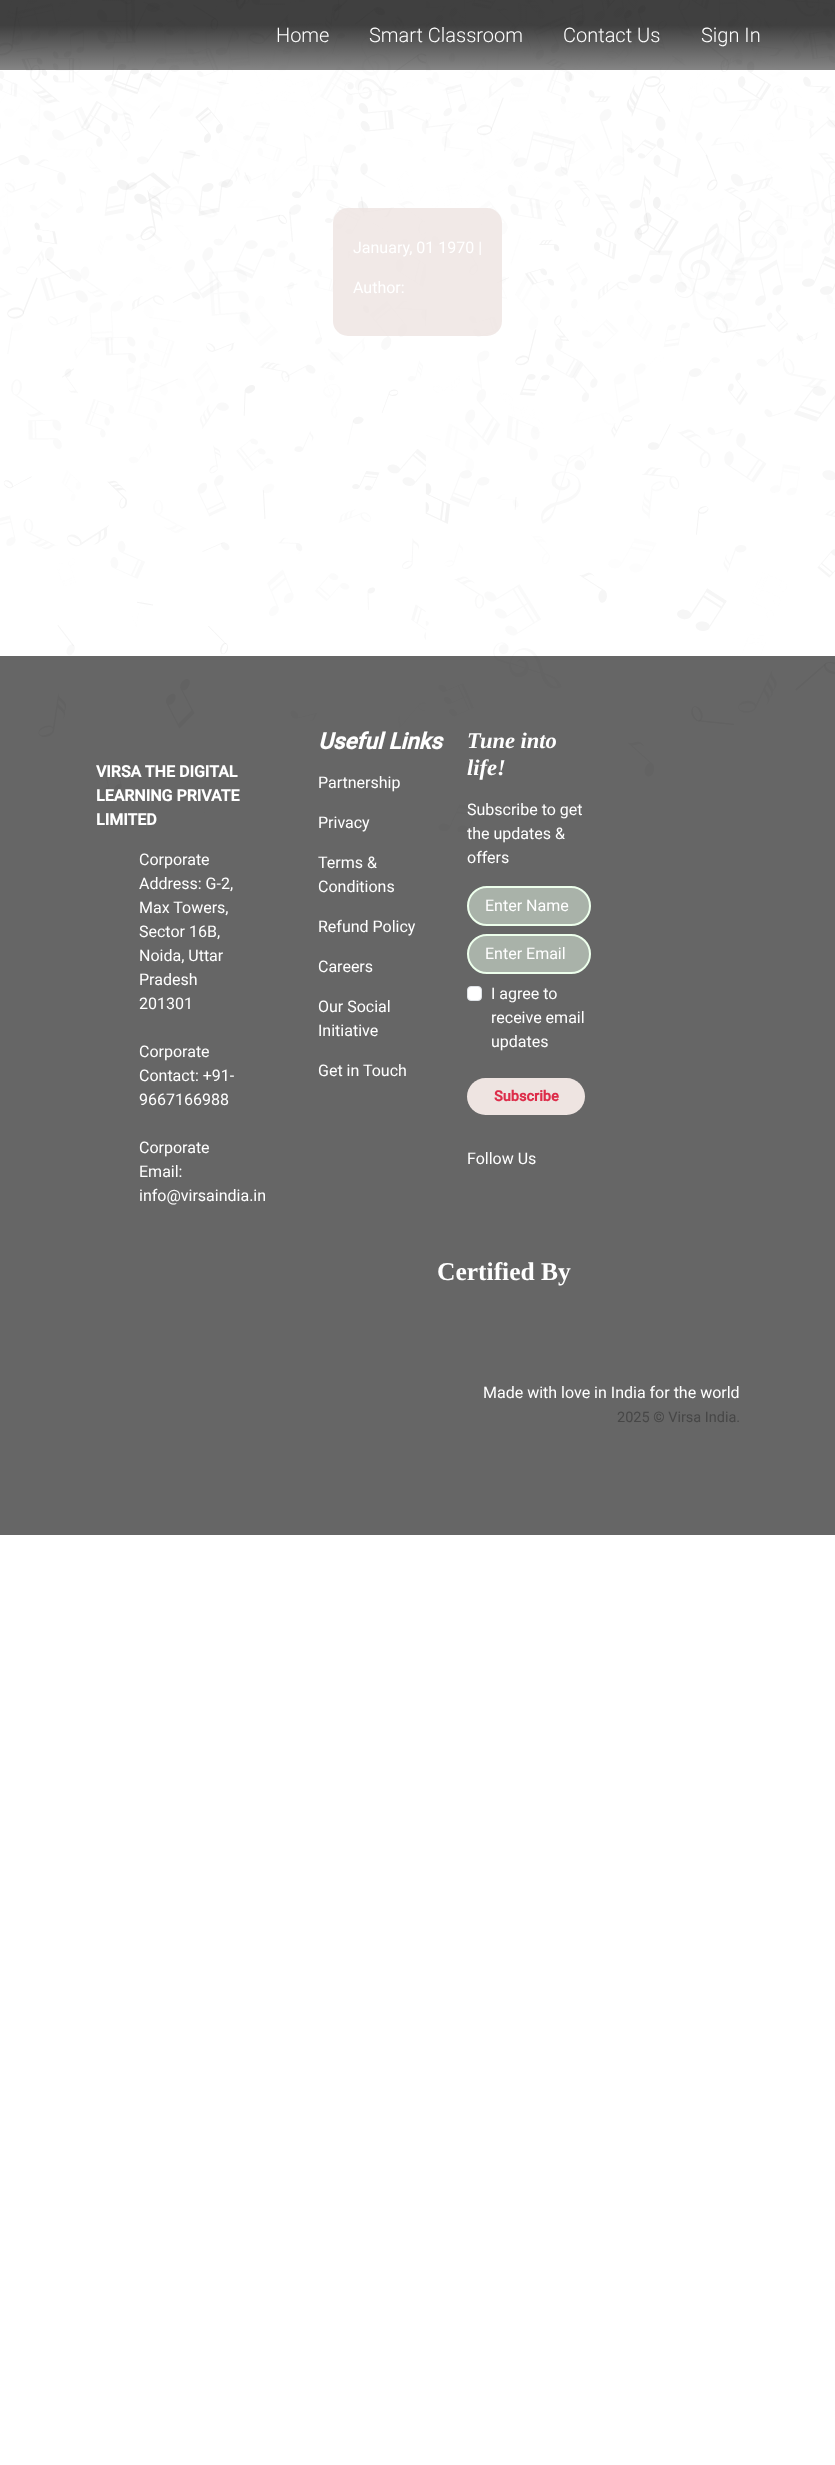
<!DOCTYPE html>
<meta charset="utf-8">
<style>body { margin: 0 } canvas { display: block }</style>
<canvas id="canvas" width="835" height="2465"></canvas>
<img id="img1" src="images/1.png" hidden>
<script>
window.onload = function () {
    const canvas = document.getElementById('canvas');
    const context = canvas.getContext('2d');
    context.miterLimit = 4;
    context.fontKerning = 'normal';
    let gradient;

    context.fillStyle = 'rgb(255, 255, 255)';
    context.fillRect(0, 0, 835, 2465);
    context.drawImage(document.getElementById('img1'), 0, 0, 835, 832);
    gradient = context.createLinearGradient(418, 0, 418, 149);
    gradient.addColorStop(0.17, 'rgba(0, 0, 0, 0.75)');
    gradient.addColorStop(1, 'rgba(0, 0, 0, 0)');
    context.fillStyle = gradient;
    context.fillRect(0, 0, 835, 70);
    context.fillStyle = 'rgba(238, 228, 225, 0.8)';
    context.beginPath();
    context.roundRect(333, 208, 169, 128, 15);
    context.fill();
    context.fillStyle = 'rgba(0, 0, 0, 0.6)';
    context.fillRect(0, 656, 835, 879);
    context.fillStyle = 'rgb(169, 178, 169)';
    context.beginPath();
    context.roundRect(468, 887, 122, 38, 19);
    context.fill();
    context.strokeStyle = 'rgb(237, 255, 236)';
    context.lineWidth = 2;
    context.stroke();
    context.beginPath();
    context.roundRect(468, 935, 122, 38, 19);
    context.fill();
    context.stroke();
    context.fillStyle = 'rgb(255, 255, 255)';
    context.beginPath();
    context.roundRect(467.5, 986.5, 14, 14, 3.5);
    context.fill();
    context.strokeStyle = 'rgb(222, 226, 230)';
    context.lineWidth = 1;
    context.stroke();
    context.fillStyle = 'rgb(238, 228, 225)';
    context.beginPath();
    context.roundRect(467, 1078, 118, 37, 18.5);
    context.fill();
    context.font = '300 20px Roboto';
    context.fillStyle = 'rgb(255, 255, 255)';
    context.fillText('Home', 276, 42);
    context.fillText('Smart Classroom', 369, 42);
    context.fillText('Contact Us', 563, 42);
    context.fillText('Sign In', 701, 42);
    context.font = '16px Roboto';
    context.fillText('January, 01 1970 |', 353, 253);
    context.fillText('Author:', 353, 293);
    context.font = 'bold 16px Roboto';
    context.fillText('VIRSA THE DIGITAL', 96, 777);
    context.fillText('LEARNING PRIVATE', 96, 801);
    context.fillText('LIMITED', 96, 825);
    context.font = '16px Roboto';
    context.fillText('Corporate', 139, 865);
    context.fillText('Address: G-2,', 139, 889);
    context.fillText('Max Towers,', 139, 913);
    context.fillText('Sector 16B,', 139, 937);
    context.fillText('Noida, Uttar', 139, 961);
    context.fillText('Pradesh', 139, 985);
    context.fillText('201301', 139, 1009);
    context.fillText('Corporate', 139, 1057);
    context.fillText('Contact: +91-', 139, 1081);
    context.fillText('9667166988', 139, 1105);
    context.fillText('Corporate', 139, 1153);
    context.fillText('Email:', 139, 1177);
    context.fillText('info@virsaindia.in', 139, 1201);
    context.font = 'italic bold 22.5px Roboto';
    context.fillText('Useful Links', 318, 749);
    context.font = '16px Roboto';
    context.fillText('Partnership', 318, 788);
    context.fillText('Privacy', 318, 828);
    context.fillText('Terms &', 318, 868);
    context.fillText('Conditions', 318, 892);
    context.fillText('Refund Policy', 318, 932);
    context.fillText('Careers', 318, 972);
    context.fillText('Our Social', 318, 1012);
    context.fillText('Initiative', 318, 1036);
    context.fillText('Get in Touch', 318, 1076);
    context.font = 'italic bold 22.5px Liberation Serif';
    context.fillText('Tune into', 467, 748);
    context.fillText('life!', 467, 775);
    context.font = '16px Roboto';
    context.fillText('Subscribe to get', 467, 815);
    context.fillText('the updates &', 467, 839);
    context.fillText('offers', 467, 863);
    context.fillText('Enter Name', 485, 911);
    context.fillText('Enter Email', 485, 959);
    context.fillText('I agree to', 491, 999);
    context.fillText('receive email', 491, 1023);
    context.fillText('updates', 491, 1047);
    context.font = 'bold 14.5px Roboto';
    context.fillStyle = 'rgb(221, 45, 74)';
    context.fillText('Subscribe', 494, 1101);
    context.font = '16px Roboto';
    context.fillStyle = 'rgb(255, 255, 255)';
    context.fillText('Follow Us', 467, 1164);
    context.font = 'bold 25.5px Liberation Serif';
    context.fillText('Certified By', 437, 1280);
    context.font = '16px Roboto';
    context.fillText('Made with love in India for the world', 483, 1398);
    context.font = '14.5px Roboto';
    context.fillStyle = 'rgb(71, 71, 71)';
    context.fillText('2025 © Virsa India.', 617, 1422);
};
</script>
